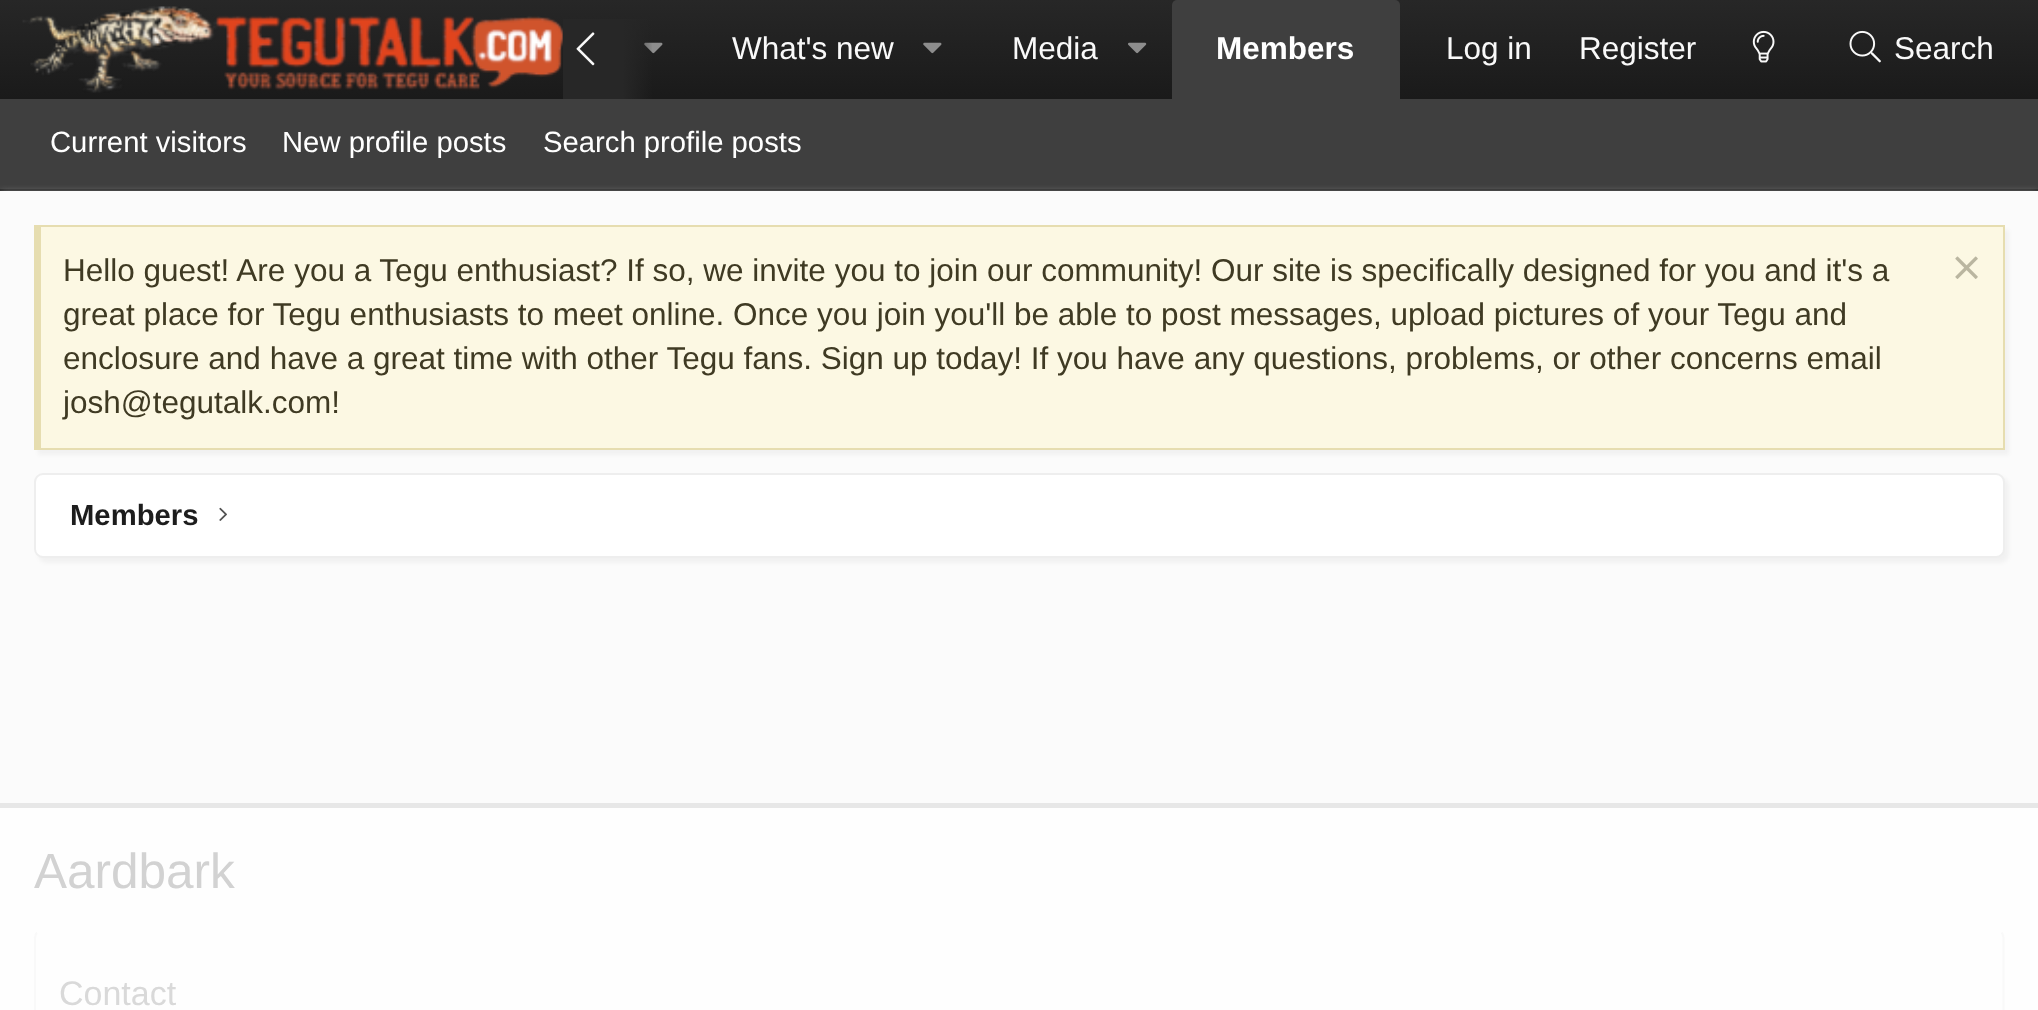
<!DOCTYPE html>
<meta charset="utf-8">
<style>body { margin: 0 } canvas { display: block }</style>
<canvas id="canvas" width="2038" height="1010"></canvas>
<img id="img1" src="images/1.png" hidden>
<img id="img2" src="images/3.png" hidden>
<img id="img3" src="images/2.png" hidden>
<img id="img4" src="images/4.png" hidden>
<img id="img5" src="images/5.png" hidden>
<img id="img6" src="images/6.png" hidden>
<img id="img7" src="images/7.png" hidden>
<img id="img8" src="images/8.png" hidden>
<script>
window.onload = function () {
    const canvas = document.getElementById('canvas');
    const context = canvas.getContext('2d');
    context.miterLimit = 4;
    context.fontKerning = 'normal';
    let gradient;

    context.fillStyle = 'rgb(63, 63, 63)';
    context.fillRect(0, 0, 2038, 1010);
    gradient = context.createLinearGradient(1019, 0, 1019, 99);
    gradient.addColorStop(0, 'rgb(39, 39, 39)');
    gradient.addColorStop(1, 'rgb(26, 26, 26)');
    context.fillStyle = gradient;
    context.fillRect(0, 0, 2038, 99);
    context.drawImage(document.getElementById('img1'), 22, 6, 541, 87);
    context.drawImage(document.getElementById('img2'), 644, 42, 19, 12);
    gradient = context.createLinearGradient(563, 50, 653, 50);
    gradient.addColorStop(0.66, 'rgb(39, 39, 39)');
    gradient.addColorStop(1, 'rgba(39, 39, 39, 0)');
    context.fillStyle = gradient;
    context.fillRect(563, 19, 89, 80);
    context.drawImage(document.getElementById('img3'), 576, 32, 19, 34);
    context.drawImage(document.getElementById('img2'), 923, 42, 19, 12);
    context.drawImage(document.getElementById('img4'), 1128, 42, 19, 12);
    context.fillStyle = 'rgb(63, 63, 63)';
    context.beginPath();
    context.roundRect(1172, 0, 228, 99, [5, 5, 0, 0]);
    context.fill();
    context.drawImage(document.getElementById('img5'), 1752, 30, 23, 33);
    context.drawImage(document.getElementById('img6'), 1849, 30, 32, 33);
    context.fillStyle = 'rgb(38, 38, 38)';
    context.fillRect(0, 189, 2038, 2);
    context.fillStyle = 'rgb(194, 194, 194)';
    context.filter = 'blur(4.5px)';
    context.beginPath();
    context.rect(0, 194, 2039, 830);
    context.fill();
    context.filter = 'none';
    context.fillStyle = 'rgb(251, 251, 251)';
    context.fillRect(0, 191, 2038, 612);
    context.fillStyle = 'rgb(254, 254, 254)';
    context.fillRect(0, 808, 2038, 202);
    context.fillStyle = 'rgba(0, 0, 0, 0.04)';
    context.filter = 'blur(2px)';
    context.beginPath();
    context.rect(38, 230, 1971, 225);
    context.fill();
    context.filter = 'none';
    context.fillStyle = 'rgb(252, 248, 227)';
    context.fillRect(41, 227, 1962, 221);
    context.fillStyle = 'rgb(230, 221, 176)';
    context.fillRect(34, 225, 1971, 2);
    context.fillRect(2003, 225, 2, 225);
    context.fillRect(34, 448, 1971, 2);
    context.fillRect(34, 225, 7, 225);
    context.drawImage(document.getElementById('img7'), 1955, 256, 23, 23);
    context.fillStyle = 'rgba(0, 0, 0, 0.04)';
    context.filter = 'blur(2px)';
    context.beginPath();
    context.roundRect(38, 477, 1971, 86, 9);
    context.fill();
    context.filter = 'none';
    context.fillStyle = 'rgb(255, 255, 255)';
    context.beginPath();
    context.roundRect(35, 474, 1969, 83, 8);
    context.fill();
    context.strokeStyle = 'rgb(238, 238, 238)';
    context.lineWidth = 2;
    context.stroke();
    context.drawImage(document.getElementById('img8'), 219, 507, 8, 14);
    context.beginPath();
    context.moveTo(2001.5, 932.5);
    context.bezierCurveTo(2003, 934, 2003.5, 936, 2003.5, 938);
    context.lineTo(2003.5, 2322);
    context.bezierCurveTo(2003.5, 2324, 2003, 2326, 2001.5, 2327.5);
    context.strokeStyle = 'rgb(249, 249, 249)';
    context.lineWidth = 2.2;
    context.stroke();
    context.beginPath();
    context.moveTo(37, 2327.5);
    context.bezierCurveTo(35.5, 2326, 35, 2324, 35, 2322);
    context.lineTo(35, 938);
    context.bezierCurveTo(35, 936, 35.5, 934, 37, 932.5);
    context.stroke();
    context.fillStyle = 'rgb(231, 231, 231)';
    context.fillRect(0, 803, 2038, 5);
    context.font = '31.5px Liberation Sans';
    context.fillStyle = 'rgb(249, 249, 249)';
    context.fillText('What\'s new', 732, 59);
    context.fillText('Media', 1012, 59);
    context.font = 'bold 31.5px Liberation Sans';
    context.fillStyle = 'rgb(255, 255, 255)';
    context.fillText('Members', 1216, 59);
    context.font = '31.5px Liberation Sans';
    context.fillStyle = 'rgb(249, 249, 249)';
    context.fillText('Log in', 1446, 59);
    context.fillText('Register', 1579, 59);
    context.fillText('Search', 1894, 59);
    context.font = '29.25px Liberation Sans';
    context.fillStyle = 'rgb(255, 255, 255)';
    context.fillText('Current visitors', 50, 152);
    context.fillText('New profile posts', 282, 152);
    context.fillText('Search profile posts', 543, 152);
    context.font = '31.5px Liberation Sans';
    context.fillStyle = 'rgb(63, 58, 35)';
    context.fillText('Hello guest! Are you a Tegu enthusiast? If so, we invite you to join our community! Our site is specifically designed for you and it\'s a', 63, 281);
    context.fillText('great place for Tegu enthusiasts to meet online. Once you join you\'ll be able to post messages, upload pictures of your Tegu and', 63, 325);
    context.fillText('enclosure and have a great time with other Tegu fans. Sign up today! If you have any questions, problems, or other concerns email', 63, 369);
    context.fillText('josh@tegutalk.com!', 63, 413);
    context.font = 'bold 29.25px Liberation Sans';
    context.fillStyle = 'rgb(29, 29, 29)';
    context.fillText('Members', 70, 525);
    context.font = '49.5px Liberation Sans';
    context.fillStyle = 'rgb(210, 210, 210)';
    context.fillText('Aardbark', 34, 888);
    context.font = '34px Liberation Sans';
    context.fillStyle = 'rgb(217, 217, 217)';
    context.fillText('Contact', 59, 1005);
};
</script>
